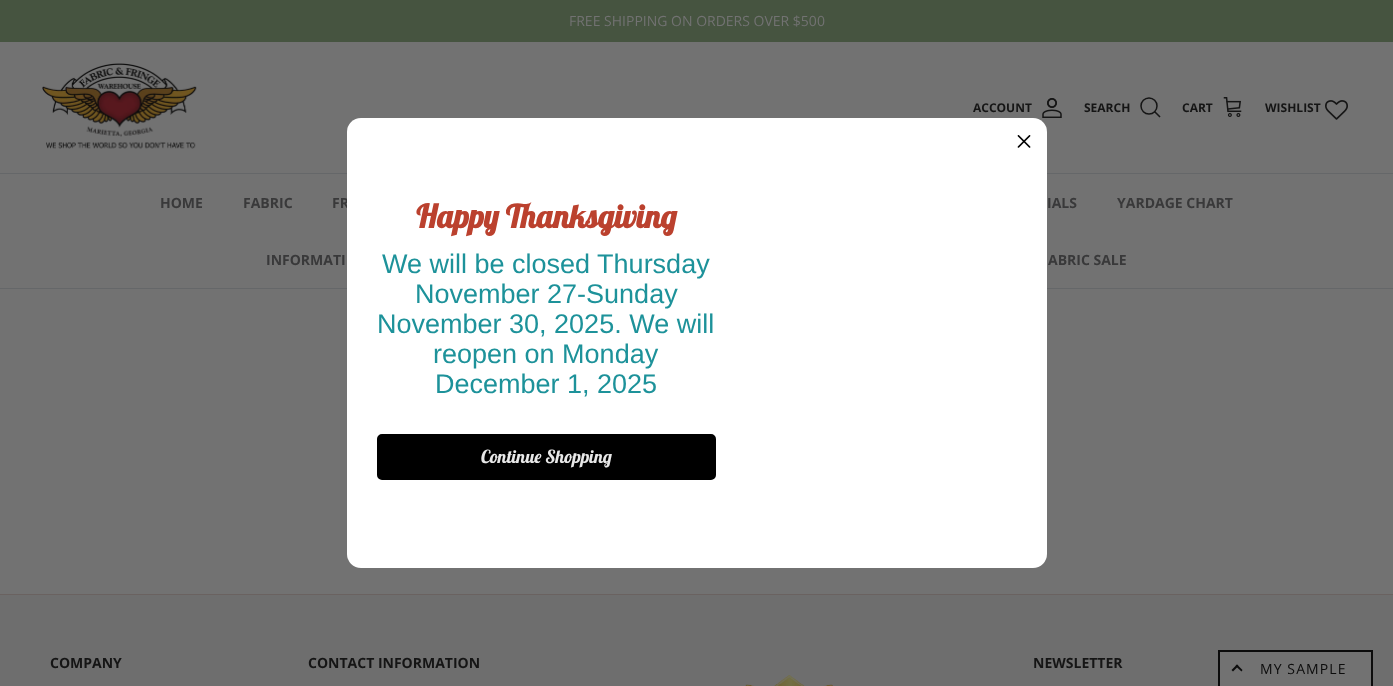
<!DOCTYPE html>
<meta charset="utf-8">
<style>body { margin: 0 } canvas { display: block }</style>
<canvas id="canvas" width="1393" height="686"></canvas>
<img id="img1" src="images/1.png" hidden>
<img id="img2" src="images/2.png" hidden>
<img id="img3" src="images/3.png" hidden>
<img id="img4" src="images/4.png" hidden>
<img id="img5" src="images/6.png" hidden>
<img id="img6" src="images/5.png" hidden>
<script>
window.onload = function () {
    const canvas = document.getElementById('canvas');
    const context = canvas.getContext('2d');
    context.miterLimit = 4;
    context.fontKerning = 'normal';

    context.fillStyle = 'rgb(114, 114, 114)';
    context.fillRect(0, 0, 1393, 686);
    context.fillStyle = 'rgb(70, 84, 64)';
    context.fillRect(0, 0, 1393, 42);
    context.fillStyle = 'rgb(101, 103, 105)';
    context.fillRect(0, 173, 1393, 1);
    context.drawImage(document.getElementById('img1'), 42, 63, 155, 86);
    context.drawImage(document.getElementById('img2'), 1042, 98, 20, 20);
    context.beginPath();
    context.arc(1149, 106, 8, 0, 2 * Math.PI);
    context.strokeStyle = 'rgb(21, 21, 21)';
    context.lineWidth = 1.5;
    context.stroke();
    context.beginPath();
    context.moveTo(1155, 112);
    context.lineTo(1159.5, 116.5);
    context.lineCap = 'square';
    context.stroke();
    context.drawImage(document.getElementById('img3'), 1223, 97, 19, 20);
    context.drawImage(document.getElementById('img4'), 1325, 100, 23, 20);
    context.fillRect(0, 288, 1393, 1);
    context.fillStyle = 'rgb(110, 110, 110)';
    context.fillRect(0, 595, 1393, 91);
    context.fillStyle = 'rgb(106, 98, 96)';
    context.fillRect(0, 594, 1393, 1);
    context.drawImage(document.getElementById('img5'), 745, 675, 88, 11);
    context.fillStyle = 'rgb(114, 114, 114)';
    context.fillRect(1220, 652, 151, 34);
    context.fillStyle = 'rgb(12, 12, 12)';
    context.fillRect(1218, 650, 155, 2);
    context.fillRect(1371, 650, 2, 36);
    context.fillRect(1218, 650, 2, 36);
    context.beginPath();
    context.moveTo(1237, 664.5);
    context.lineTo(1242.5, 670);
    context.lineTo(1241.5, 671.5);
    context.lineTo(1235.5, 666);
    context.closePath();
    context.fill();
    context.beginPath();
    context.moveTo(1237, 664.5);
    context.lineTo(1238.5, 666);
    context.lineTo(1233, 671.5);
    context.lineTo(1231.5, 670);
    context.closePath();
    context.fill();
    context.font = '14px Open Sans';
    context.fillStyle = 'rgb(114, 114, 114)';
    context.fillText('FREE SHIPPING ON ORDERS OVER $500', 569, 26);
    context.font = 'bold 12px Open Sans';
    context.fillStyle = 'rgb(21, 21, 21)';
    context.fillText('ACCOUNT', 973, 112);
    context.fillText('SEARCH', 1084, 112);
    context.fillText('CART', 1182, 112);
    context.fillText('WISHLIST', 1265, 112);
    context.font = 'bold 14px Open Sans';
    context.fillStyle = 'rgb(57, 57, 58)';
    context.fillText('HOME', 160, 208);
    context.fillText('FABRIC', 243, 208);
    context.fillText('FR', 332, 208);
    context.fillText('IALS', 1047, 208);
    context.fillText('YARDAGE CHART', 1117, 208);
    context.fillText('INFORMATI', 266, 265);
    context.fillText('ABRIC SALE', 1048, 265);
    context.fillStyle = 'rgb(255, 255, 255)';
    context.beginPath();
    context.roundRect(347, 118, 700, 450, 14);
    context.fill();
    context.drawImage(document.getElementById('img6'), 1017, 135, 14, 13);
    context.font = 'bold 32px Lobster';
    context.fillStyle = 'rgb(187, 65, 46)';
    context.fillText('Happy Thanksgiving', 416, 228);
    context.font = '27px Liberation Sans';
    context.fillStyle = 'rgb(29, 146, 154)';
    context.fillText('We will be closed Thursday', 382, 273);
    context.fillText('November 27-Sunday', 415, 303);
    context.fillText('November 30, 2025. We will', 377, 333);
    context.fillText('reopen on Monday', 433, 363);
    context.fillText('December 1, 2025', 435, 393);
    context.fillStyle = 'rgb(0, 0, 0)';
    context.beginPath();
    context.roundRect(378, 435, 337, 44, 4);
    context.fill();
    context.strokeStyle = 'rgb(0, 0, 0)';
    context.lineWidth = 2;
    context.stroke();
    context.font = '18px Lobster';
    context.fillStyle = 'rgb(232, 232, 232)';
    context.fillText('Continue Shopping', 481, 463);
    context.font = 'bold 14px Open Sans';
    context.fillStyle = 'rgb(21, 21, 21)';
    context.fillText('COMPANY', 50, 668);
    context.fillText('CONTACT INFORMATION', 308, 668);
    context.fillText('NEWSLETTER', 1033, 668);
    context.letterSpacing = '1.1px';
    context.font = '14px Open Sans';
    context.fillStyle = 'rgb(12, 12, 12)';
    context.fillText('MY SAMPLE', 1260, 674);
};
</script>
